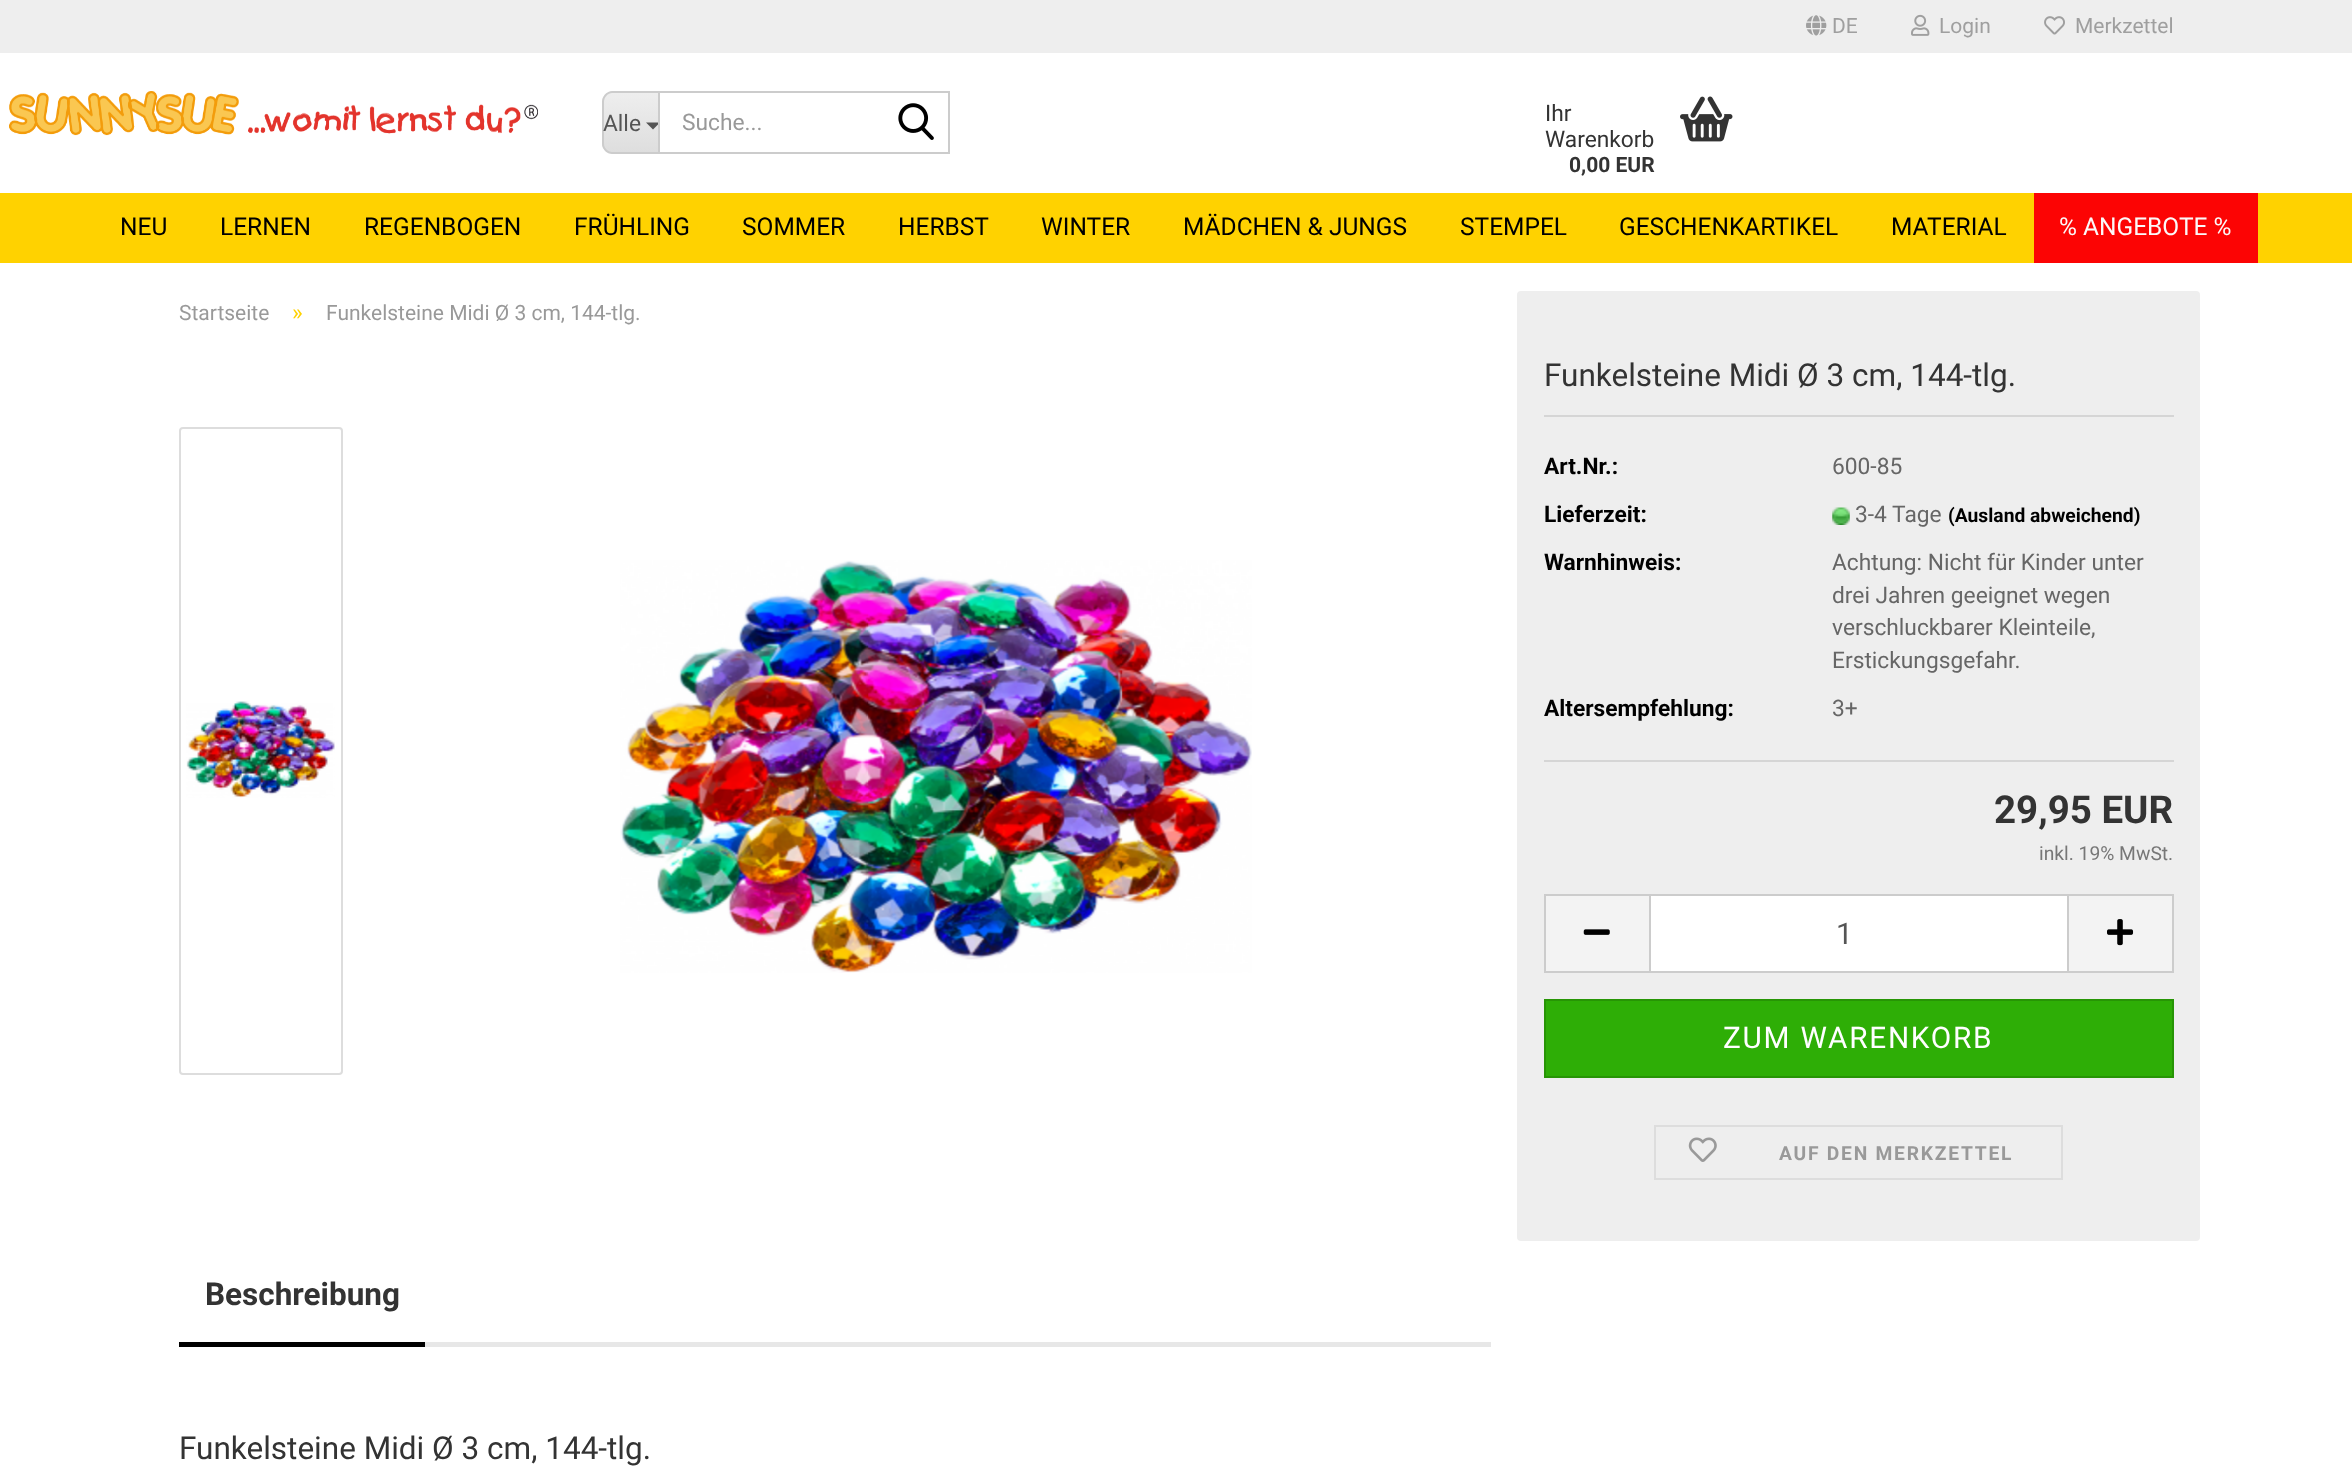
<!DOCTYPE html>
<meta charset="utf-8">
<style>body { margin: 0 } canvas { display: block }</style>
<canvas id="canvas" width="2352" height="1467"></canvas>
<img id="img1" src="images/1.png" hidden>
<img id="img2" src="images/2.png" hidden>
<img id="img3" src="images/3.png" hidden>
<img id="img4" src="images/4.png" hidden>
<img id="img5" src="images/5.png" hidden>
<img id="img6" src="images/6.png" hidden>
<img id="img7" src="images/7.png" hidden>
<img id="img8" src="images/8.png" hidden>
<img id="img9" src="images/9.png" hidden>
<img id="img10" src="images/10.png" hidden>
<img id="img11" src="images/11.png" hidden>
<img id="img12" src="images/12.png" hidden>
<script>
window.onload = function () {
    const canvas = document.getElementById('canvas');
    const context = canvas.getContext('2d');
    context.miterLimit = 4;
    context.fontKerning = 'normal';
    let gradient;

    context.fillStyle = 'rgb(255, 255, 255)';
    context.fillRect(0, 0, 2352, 1467);
    context.fillStyle = 'rgb(238, 238, 238)';
    context.fillRect(0, 0, 2352, 53);
    context.drawImage(document.getElementById('img1'), 1806, 15, 21, 21);
    context.drawImage(document.getElementById('img2'), 1911, 14, 19, 22);
    context.drawImage(document.getElementById('img3'), 2044, 16, 21, 19);
    context.drawImage(document.getElementById('img4'), 9, 91, 529, 45);
    context.save();
    context.beginPath();
    context.roundRect(602, 91, 56, 63, [11, 0, 0, 11]);
    context.clip();
    gradient = context.createLinearGradient(631, 93, 631, 152);
    gradient.addColorStop(0, 'rgb(238, 238, 238)');
    gradient.addColorStop(1, 'rgb(222, 222, 222)');
    context.fillStyle = gradient;
    context.fillRect(602, 93, 56, 59);
    context.restore();
    context.fillStyle = 'rgb(204, 204, 204)';
    context.beginPath();
    context.moveTo(612, 91);
    context.lineTo(658, 91);
    context.lineTo(658, 154);
    context.lineTo(612, 154);
    context.bezierCurveTo(607, 154, 602, 149, 602, 144);
    context.lineTo(602, 102);
    context.bezierCurveTo(602, 96, 607, 91, 612, 91);
    context.closePath();
    context.moveTo(612, 93);
    context.lineTo(658, 93);
    context.lineTo(658, 152);
    context.lineTo(612, 152);
    context.bezierCurveTo(608, 152, 604, 148, 604, 144);
    context.lineTo(604, 102);
    context.bezierCurveTo(604, 97, 608, 93, 612, 93);
    context.closePath();
    context.fill('evenodd');
    context.fillStyle = 'rgb(85, 85, 85)';
    context.beginPath();
    context.moveTo(646, 122.5);
    context.lineTo(660, 122.5);
    context.lineTo(653, 129.5);
    context.closePath();
    context.fill();
    context.strokeStyle = 'rgb(204, 204, 204)';
    context.lineWidth = 2;
    context.strokeRect(659, 92, 290, 61);
    context.drawImage(document.getElementById('img5'), 898, 103, 36, 37);
    context.drawImage(document.getElementById('img6'), 1680, 96, 53, 46);
    context.fillStyle = 'rgb(255, 210, 0)';
    context.fillRect(0, 193, 2352, 70);
    context.fillStyle = 'rgb(252, 4, 4)';
    context.fillRect(2034, 193, 224, 70);
    context.beginPath();
    context.roundRect(180, 428, 162, 646, 3);
    context.strokeStyle = 'rgb(221, 221, 221)';
    context.stroke();
    context.drawImage(document.getElementById('img7'), 186, 701, 149, 97);
    context.drawImage(document.getElementById('img8'), 620, 560, 632, 413);
    context.fillStyle = 'rgb(238, 238, 238)';
    context.beginPath();
    context.roundRect(1517, 291, 683, 950, 4);
    context.fill();
    context.fillStyle = 'rgb(213, 213, 213)';
    context.fillRect(1544, 415, 630, 2);
    context.fillRect(1544, 760, 630, 2);
    context.drawImage(document.getElementById('img9'), 1832, 507, 18, 18);
    context.fillStyle = 'rgb(243, 243, 243)';
    context.fillRect(1546, 896, 103, 75);
    context.fillStyle = 'rgb(204, 204, 204)';
    context.fillRect(1544, 894, 105, 2);
    context.fillRect(1544, 971, 105, 2);
    context.fillRect(1544, 894, 2, 79);
    context.drawImage(document.getElementById('img10'), 1583, 929, 27, 6);
    context.fillStyle = 'rgb(255, 255, 255)';
    context.beginPath();
    context.rect(1650, 895, 418, 77);
    context.fill();
    context.strokeStyle = 'rgb(204, 204, 204)';
    context.stroke();
    context.fillStyle = 'rgb(243, 243, 243)';
    context.fillRect(2069, 896, 103, 75);
    context.fillStyle = 'rgb(204, 204, 204)';
    context.fillRect(2069, 894, 105, 2);
    context.fillRect(2172, 894, 2, 79);
    context.fillRect(2069, 971, 105, 2);
    context.drawImage(document.getElementById('img11'), 2107, 919, 27, 27);
    context.fillStyle = 'rgb(46, 174, 6)';
    context.beginPath();
    context.rect(1545, 1000, 628, 77);
    context.fill();
    context.strokeStyle = 'rgb(39, 149, 5)';
    context.stroke();
    context.strokeStyle = 'rgb(221, 221, 221)';
    context.strokeRect(1655, 1126, 407, 53);
    context.drawImage(document.getElementById('img12'), 1688, 1137, 29, 25);
    context.fillStyle = 'rgb(231, 231, 231)';
    context.fillRect(425, 1342, 1066, 5);
    context.fillStyle = 'rgb(0, 0, 0)';
    context.fillRect(179, 1342, 246, 5);
    context.font = '21px Roboto';
    context.fillStyle = 'rgb(159, 159, 159)';
    context.fillText('DE', 1832, 33);
    context.fillText('Login', 1939, 33);
    context.fillText('Merkzettel', 2075, 33);
    context.font = '22.75px Roboto';
    context.fillStyle = 'rgb(85, 85, 85)';
    context.fillText('Alle', 603, 131);
    context.fillStyle = 'rgb(153, 153, 153)';
    context.fillText('Suche...', 682, 130);
    context.fillStyle = 'rgb(51, 51, 51)';
    context.fillText('Ihr', 1545, 121);
    context.fillText('Warenkorb', 1545, 147);
    context.font = 'bold 21px Roboto';
    context.fillText('0,00 EUR', 1569, 172);
    context.font = '24.5px Roboto';
    context.fillStyle = 'rgb(0, 0, 0)';
    context.fillText('NEU', 120, 235);
    context.fillText('LERNEN', 220, 235);
    context.fillText('REGENBOGEN', 364, 235);
    context.fillText('FRÜHLING', 574, 235);
    context.fillText('SOMMER', 742, 235);
    context.fillText('HERBST', 898, 235);
    context.fillText('WINTER', 1041, 235);
    context.fillText('MÄDCHEN & JUNGS', 1183, 235);
    context.fillText('STEMPEL', 1460, 235);
    context.fillText('GESCHENKARTIKEL', 1619, 235);
    context.fillText('MATERIAL', 1891, 235);
    context.fillStyle = 'rgb(252, 248, 248)';
    context.fillText('% ANGEBOTE %', 2059, 235);
    context.font = '21px Roboto';
    context.fillStyle = 'rgb(153, 153, 153)';
    context.fillText('Startseite', 179, 320);
    context.font = '22.75px Roboto';
    context.fillStyle = 'rgb(255, 210, 0)';
    context.fillText('»', 292, 320);
    context.font = '21px Roboto';
    context.fillStyle = 'rgb(153, 153, 153)';
    context.fillText('Funkelsteine Midi Ø 3 cm, 144-tlg.', 326, 320);
    context.font = '31.5px Roboto';
    context.fillStyle = 'rgb(51, 51, 51)';
    context.fillText('Funkelsteine Midi Ø 3 cm, 144-tlg.', 1544, 386);
    context.font = 'bold 22.75px Roboto';
    context.fillStyle = 'rgb(0, 0, 0)';
    context.fillText('Art.Nr.:', 1544, 474);
    context.font = '22.75px Roboto';
    context.fillStyle = 'rgb(102, 102, 102)';
    context.fillText('600-85', 1832, 474);
    context.font = 'bold 22.75px Roboto';
    context.fillStyle = 'rgb(0, 0, 0)';
    context.fillText('Lieferzeit:', 1544, 522);
    context.font = '22.75px Roboto';
    context.fillStyle = 'rgb(102, 102, 102)';
    context.fillText('3-4 Tage', 1855, 522);
    context.font = 'bold 19.25px Roboto';
    context.fillStyle = 'rgb(0, 0, 0)';
    context.fillText('(Ausland abweichend)', 1948, 522);
    context.font = 'bold 22.75px Roboto';
    context.fillText('Warnhinweis:', 1544, 570);
    context.font = '22.75px Roboto';
    context.fillStyle = 'rgb(102, 102, 102)';
    context.fillText('Achtung: Nicht für Kinder unter', 1832, 570);
    context.fillText('drei Jahren geeignet wegen', 1832, 603);
    context.fillText('verschluckbarer Kleinteile,', 1832, 635);
    context.fillText('Erstickungsgefahr.', 1832, 668);
    context.font = 'bold 22.75px Roboto';
    context.fillStyle = 'rgb(0, 0, 0)';
    context.fillText('Altersempfehlung:', 1544, 716);
    context.font = '22.75px Roboto';
    context.fillStyle = 'rgb(102, 102, 102)';
    context.fillText('3+', 1832, 716);
    context.font = 'bold 38.5px Roboto';
    context.fillStyle = 'rgb(51, 51, 51)';
    context.fillText('29,95 EUR', 1994, 823);
    context.font = '19.25px Roboto';
    context.fillStyle = 'rgb(119, 119, 119)';
    context.fillText('inkl. 19% MwSt.', 2039, 860);
    context.font = '29.75px Roboto';
    context.fillStyle = 'rgb(85, 85, 85)';
    context.fillText('1', 1836, 944);
    context.letterSpacing = '1.75px';
    context.fillStyle = 'rgb(255, 255, 255)';
    context.fillText('ZUM WARENKORB', 1723, 1048);
    context.font = 'bold 19.25px Roboto';
    context.fillStyle = 'rgb(153, 153, 153)';
    context.fillText('AUF DEN MERKZETTEL', 1779, 1160);
    context.letterSpacing = '0px';
    context.font = 'bold 31.5px Roboto';
    context.fillStyle = 'rgb(51, 51, 51)';
    context.fillText('Beschreibung', 205, 1305);
    context.font = '31.5px Roboto';
    context.fillText('Funkelsteine Midi Ø 3 cm, 144-tlg.', 179, 1459);
};
</script>
